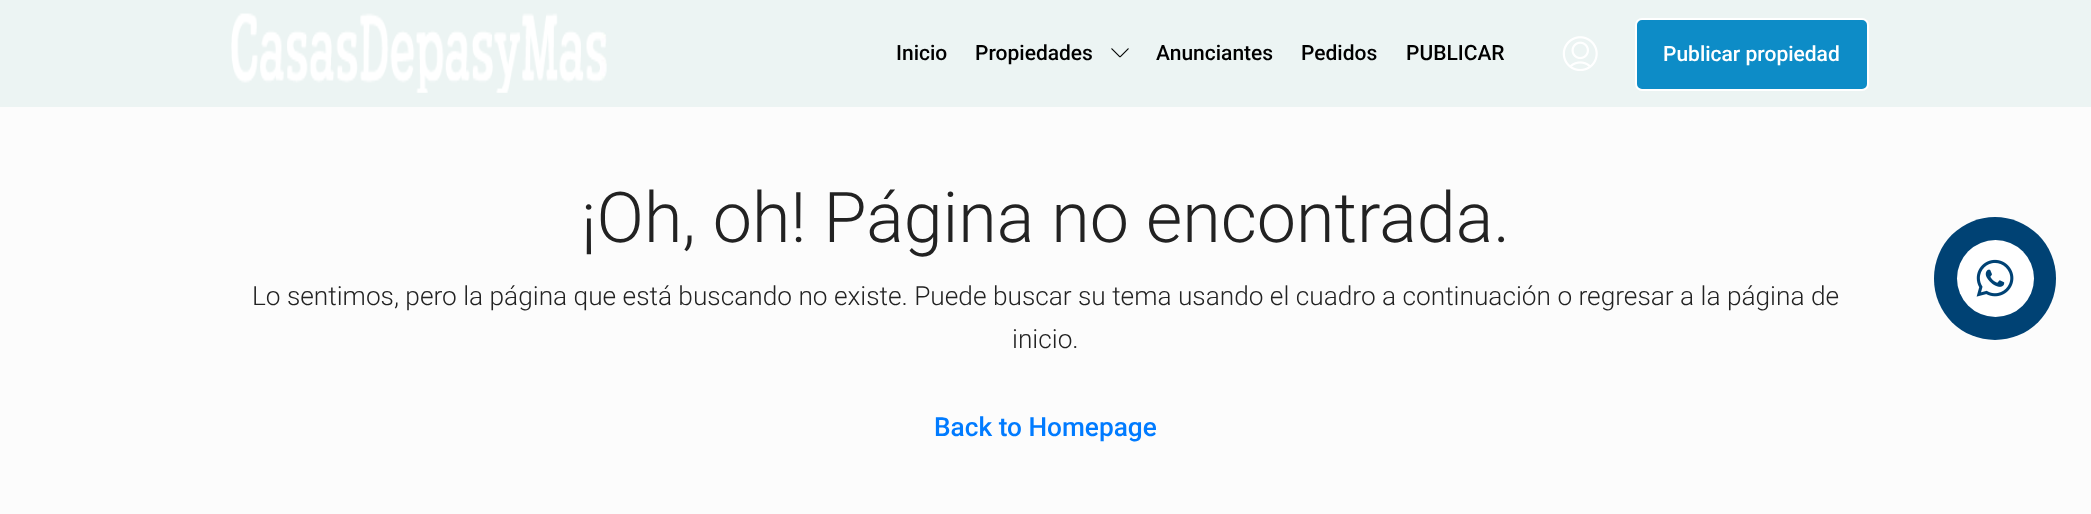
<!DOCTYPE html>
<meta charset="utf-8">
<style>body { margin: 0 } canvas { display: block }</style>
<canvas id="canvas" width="2091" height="514"></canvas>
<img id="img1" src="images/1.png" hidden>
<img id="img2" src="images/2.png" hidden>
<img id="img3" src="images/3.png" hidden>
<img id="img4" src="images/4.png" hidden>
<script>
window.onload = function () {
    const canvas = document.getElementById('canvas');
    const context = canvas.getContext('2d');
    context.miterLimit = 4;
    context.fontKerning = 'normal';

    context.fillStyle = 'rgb(252, 252, 252)';
    context.fillRect(0, 0, 2091, 514);
    context.fillStyle = 'rgb(236, 244, 243)';
    context.fillRect(0, 0, 2091, 107);
    context.drawImage(document.getElementById('img1'), 231, 13, 376, 80);
    context.drawImage(document.getElementById('img2'), 1111, 48, 18, 10);
    context.drawImage(document.getElementById('img3'), 1562, 36, 36, 35);
    context.fillStyle = 'rgb(13, 140, 199)';
    context.beginPath();
    context.roundRect(1636, 19, 232, 71, 6);
    context.fill();
    context.strokeStyle = 'rgb(255, 255, 255)';
    context.lineWidth = 2;
    context.stroke();
    context.fillStyle = 'rgb(0, 66, 116)';
    context.beginPath();
    context.roundRect(1934, 217, 122, 123, 61);
    context.fill();
    context.fillStyle = 'rgb(255, 255, 255)';
    context.beginPath();
    context.arc(1995.5, 278.5, 38.5, 0, 2 * Math.PI);
    context.fill();
    context.drawImage(document.getElementById('img4'), 1976, 259, 38, 38);
    context.font = '500 21px Roboto';
    context.fillStyle = 'rgb(0, 0, 0)';
    context.fillText('Inicio', 896, 60);
    context.fillText('Propiedades', 975, 60);
    context.fillText('Anunciantes', 1156, 60);
    context.fillText('Pedidos', 1301, 60);
    context.fillText('PUBLICAR', 1406, 60);
    context.fillStyle = 'rgb(255, 255, 255)';
    context.fillText('Publicar propiedad', 1663, 61);
    context.font = '300 70px Roboto';
    context.fillStyle = 'rgb(34, 34, 34)';
    context.fillText('¡Oh, oh! Página no encontrada.', 581, 242);
    context.font = '300 26.25px Roboto';
    context.fillText('Lo sentimos, pero la página que está buscando no existe. Puede buscar su tema usando el cuadro a continuación o regresar a la página de', 252, 305);
    context.fillText('inicio.', 1012, 348);
    context.font = '500 26.25px Roboto';
    context.fillStyle = 'rgb(0, 123, 255)';
    context.fillText('Back to Homepage', 934, 436);
};
</script>
